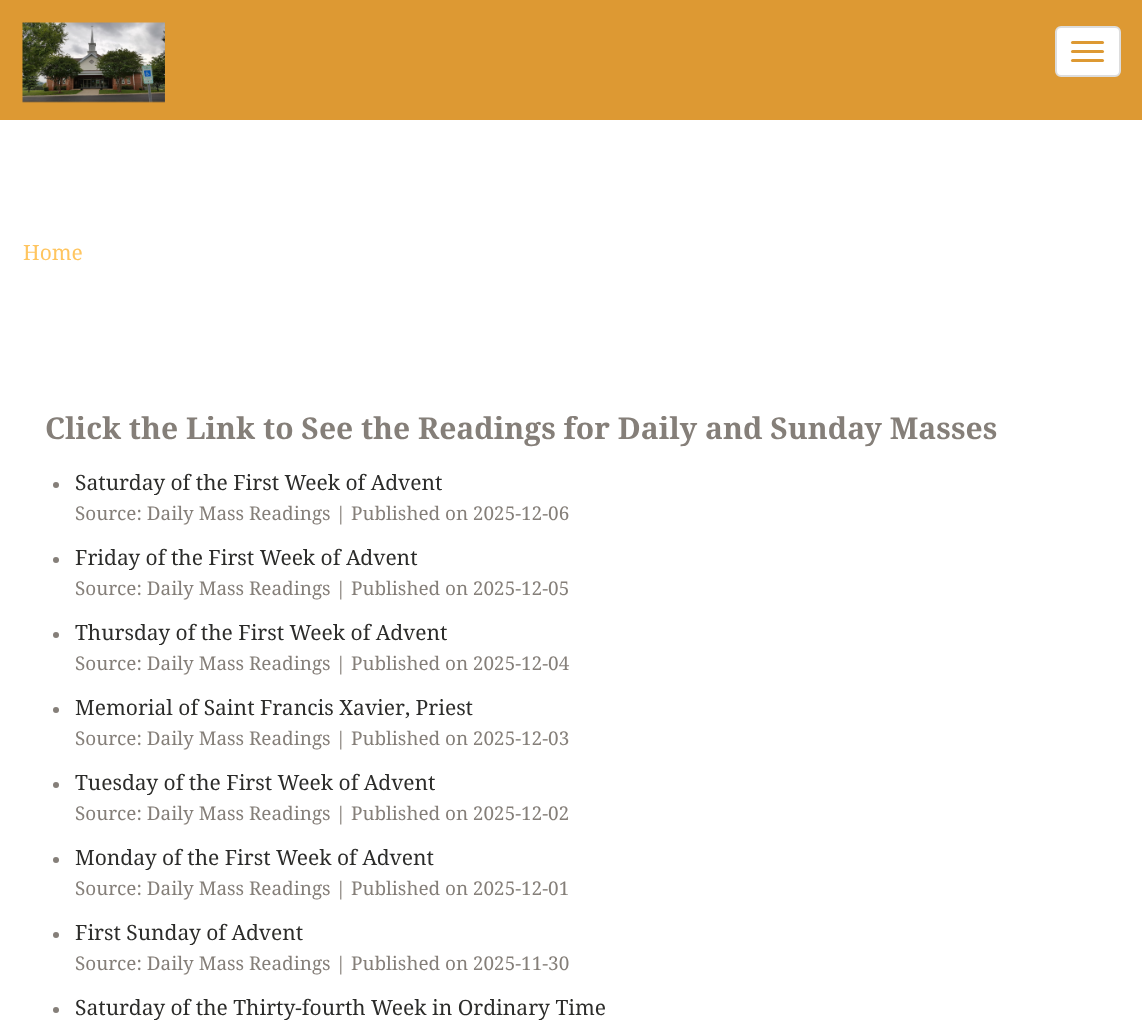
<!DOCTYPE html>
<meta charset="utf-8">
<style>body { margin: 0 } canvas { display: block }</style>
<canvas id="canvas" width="1142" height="1030"></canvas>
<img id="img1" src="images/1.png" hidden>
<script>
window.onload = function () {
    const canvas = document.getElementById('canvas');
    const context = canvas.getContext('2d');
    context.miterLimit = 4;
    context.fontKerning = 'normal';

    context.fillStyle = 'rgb(255, 255, 255)';
    context.fillRect(0, 0, 1142, 1030);
    context.fillStyle = 'rgb(221, 153, 51)';
    context.fillRect(0, 0, 1142, 120);
    context.drawImage(document.getElementById('img1'), 22, 22, 143, 81);
    context.fillStyle = 'rgb(255, 255, 255)';
    context.beginPath();
    context.roundRect(1056, 27, 64, 49, 5);
    context.fill();
    context.strokeStyle = 'rgb(221, 221, 221)';
    context.lineWidth = 2;
    context.stroke();
    context.fillStyle = 'rgb(221, 153, 51)';
    context.beginPath();
    context.roundRect(1071, 41, 33, 3, 1.5);
    context.fill();
    context.beginPath();
    context.roundRect(1071, 50, 33, 3, 1.5);
    context.fill();
    context.beginPath();
    context.roundRect(1071, 59, 33, 3, 1.5);
    context.fill();
    context.fillStyle = 'rgb(133, 127, 121)';
    context.beginPath();
    context.arc(56, 485, 3, 0, 2 * Math.PI);
    context.fill();
    context.beginPath();
    context.arc(56, 560, 3, 0, 2 * Math.PI);
    context.fill();
    context.beginPath();
    context.arc(56, 635, 3, 0, 2 * Math.PI);
    context.fill();
    context.beginPath();
    context.arc(56, 710, 3, 0, 2 * Math.PI);
    context.fill();
    context.beginPath();
    context.arc(56, 785, 3, 0, 2 * Math.PI);
    context.fill();
    context.beginPath();
    context.arc(56, 860, 3, 0, 2 * Math.PI);
    context.fill();
    context.beginPath();
    context.arc(56, 935, 3, 0, 2 * Math.PI);
    context.fill();
    context.beginPath();
    context.arc(56, 1010, 3, 0, 2 * Math.PI);
    context.fill();
    context.font = '21px Droid Serif';
    context.fillStyle = 'rgb(255, 197, 95)';
    context.fillText('Home', 23, 260);
    context.font = 'bold 30px Droid Serif';
    context.fillStyle = 'rgb(133, 127, 121)';
    context.fillText('Click the Link to See the Readings for Daily and Sunday Masses', 45, 439);
    context.font = '21px Droid Serif';
    context.fillStyle = 'rgb(44, 44, 42)';
    context.fillText('Saturday of the First Week of Advent', 75, 490);
    context.font = '18.9px Droid Serif';
    context.fillStyle = 'rgb(133, 127, 121)';
    context.fillText('Source: Daily Mass Readings | Published on 2025-12-06', 75, 520);
    context.font = '21px Droid Serif';
    context.fillStyle = 'rgb(44, 44, 42)';
    context.fillText('Friday of the First Week of Advent', 75, 565);
    context.font = '18.9px Droid Serif';
    context.fillStyle = 'rgb(133, 127, 121)';
    context.fillText('Source: Daily Mass Readings | Published on 2025-12-05', 75, 595);
    context.font = '21px Droid Serif';
    context.fillStyle = 'rgb(44, 44, 42)';
    context.fillText('Thursday of the First Week of Advent', 75, 640);
    context.font = '18.9px Droid Serif';
    context.fillStyle = 'rgb(133, 127, 121)';
    context.fillText('Source: Daily Mass Readings | Published on 2025-12-04', 75, 670);
    context.font = '21px Droid Serif';
    context.fillStyle = 'rgb(44, 44, 42)';
    context.fillText('Memorial of Saint Francis Xavier, Priest', 75, 715);
    context.font = '18.9px Droid Serif';
    context.fillStyle = 'rgb(133, 127, 121)';
    context.fillText('Source: Daily Mass Readings | Published on 2025-12-03', 75, 745);
    context.font = '21px Droid Serif';
    context.fillStyle = 'rgb(44, 44, 42)';
    context.fillText('Tuesday of the First Week of Advent', 75, 790);
    context.font = '18.9px Droid Serif';
    context.fillStyle = 'rgb(133, 127, 121)';
    context.fillText('Source: Daily Mass Readings | Published on 2025-12-02', 75, 820);
    context.font = '21px Droid Serif';
    context.fillStyle = 'rgb(44, 44, 42)';
    context.fillText('Monday of the First Week of Advent', 75, 865);
    context.font = '18.9px Droid Serif';
    context.fillStyle = 'rgb(133, 127, 121)';
    context.fillText('Source: Daily Mass Readings | Published on 2025-12-01', 75, 895);
    context.font = '21px Droid Serif';
    context.fillStyle = 'rgb(44, 44, 42)';
    context.fillText('First Sunday of Advent', 75, 940);
    context.font = '18.9px Droid Serif';
    context.fillStyle = 'rgb(133, 127, 121)';
    context.fillText('Source: Daily Mass Readings | Published on 2025-11-30', 75, 970);
    context.font = '21px Droid Serif';
    context.fillStyle = 'rgb(44, 44, 42)';
    context.fillText('Saturday of the Thirty-fourth Week in Ordinary Time', 75, 1015);
};
</script>
